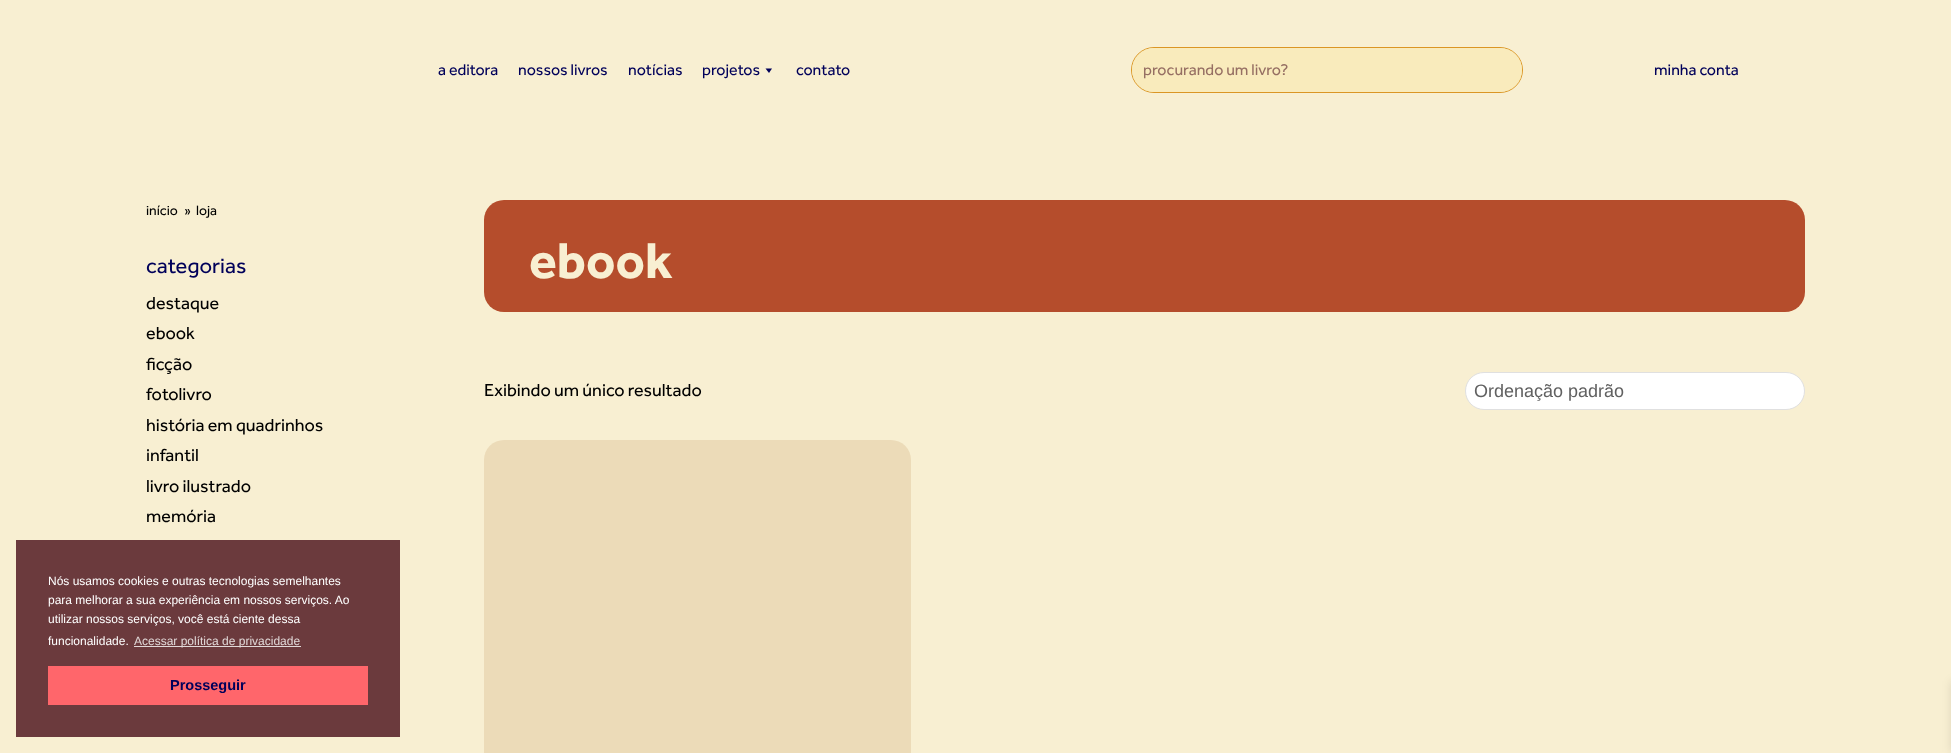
<!DOCTYPE html>
<meta charset="utf-8">
<style>body { margin: 0 } canvas { display: block }</style>
<canvas id="canvas" width="1951" height="753"></canvas>
<script>
window.onload = function () {
    const canvas = document.getElementById('canvas');
    const context = canvas.getContext('2d');
    context.miterLimit = 4;
    context.fontKerning = 'normal';

    context.fillStyle = 'rgb(248, 239, 210)';
    context.fillRect(0, 0, 1951, 753);
    context.fillStyle = 'rgb(0, 0, 90)';
    context.beginPath();
    context.moveTo(772, 68.5);
    context.lineTo(769, 73);
    context.lineTo(765.5, 68.5);
    context.closePath();
    context.fill();
    context.fillStyle = 'rgb(249, 235, 188)';
    context.beginPath();
    context.roundRect(1131.5, 47.5, 391, 45, 22.5);
    context.fill();
    context.strokeStyle = 'rgb(219, 150, 36)';
    context.stroke();
    context.beginPath();
    context.roundRect(1132.5, 48.5, 329, 43, 21.5);
    context.fill();
    context.strokeStyle = 'rgb(249, 235, 188)';
    context.stroke();
    context.beginPath();
    context.roundRect(1462, 48, 60, 44, 22);
    context.fill();
    context.fillStyle = 'rgb(181, 77, 44)';
    context.beginPath();
    context.roundRect(484, 200, 1321, 112, 20);
    context.fill();
    context.fillStyle = 'rgb(255, 255, 255)';
    context.beginPath();
    context.roundRect(1465.5, 372.5, 339, 37, 18.5);
    context.fill();
    context.strokeStyle = 'rgb(224, 224, 224)';
    context.stroke();
    context.fillStyle = 'rgb(236, 219, 184)';
    context.beginPath();
    context.roundRect(484, 440, 427, 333, 20);
    context.fill();
    context.fillStyle = 'rgb(107, 58, 61)';
    context.fillRect(16, 540, 384, 197);
    context.fillStyle = 'rgb(225, 216, 216)';
    context.fillRect(134, 646, 167, 1);
    context.fillStyle = 'rgb(255, 102, 107)';
    context.fillRect(48, 666, 320, 39);
    context.fillStyle = 'rgba(0, 0, 0, 0.1)';
    context.filter = 'blur(5px)';
    context.beginPath();
    context.rect(1951, 681, 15, 71);
    context.fill();
    context.filter = 'none';
    context.font = '16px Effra';
    context.fillStyle = 'rgb(0, 0, 90)';
    context.fillText('a editora', 438, 75);
    context.fillText('nossos livros', 518, 75);
    context.fillText('notícias', 628, 75);
    context.fillText('projetos', 702, 75);
    context.fillText('contato', 796, 75);
    context.fillStyle = 'rgb(150, 111, 99)';
    context.fillText('procurando um livro?', 1143, 75);
    context.fillStyle = 'rgb(0, 0, 90)';
    context.fillText('minha conta', 1654, 75);
    context.font = '14px Effra';
    context.fillStyle = 'rgb(0, 0, 0)';
    context.fillText('início', 146, 215);
    context.fillText('»', 184, 215);
    context.fillText('loja', 196, 215);
    context.font = '22px Effra';
    context.fillStyle = 'rgb(0, 0, 90)';
    context.fillText('categorias', 146, 273);
    context.font = '18px Effra';
    context.fillStyle = 'rgb(0, 0, 0)';
    context.fillText('destaque', 146, 309);
    context.fillText('ebook', 146, 339);
    context.fillText('ficção', 146, 370);
    context.fillText('fotolivro', 146, 400);
    context.fillText('história em quadrinhos', 146, 431);
    context.fillText('infantil', 146, 461);
    context.fillText('livro ilustrado', 146, 492);
    context.fillText('memória', 146, 522);
    context.font = 'bold 52px Effra';
    context.fillStyle = 'rgb(248, 239, 210)';
    context.fillText('ebook', 529, 278);
    context.font = '18px Effra';
    context.fillStyle = 'rgb(0, 0, 0)';
    context.fillText('Exibindo um único resultado', 484, 396);
    context.font = '18px Liberation Sans';
    context.fillStyle = 'rgb(97, 97, 97)';
    context.fillText('Ordenação padrão', 1474, 397);
    context.font = '12px Liberation Sans';
    context.fillStyle = 'rgb(255, 255, 255)';
    context.fillText('Nós usamos cookies e outras tecnologias semelhantes', 48, 585);
    context.fillText('para melhorar a sua experiência em nossos serviços. Ao', 48, 604);
    context.fillText('utilizar nossos serviços, você está ciente dessa', 48, 623);
    context.fillText('funcionalidade.', 48, 645);
    context.fillStyle = 'rgb(225, 216, 216)';
    context.fillText('Acessar política de privacidade', 134, 645);
    context.font = 'bold 14.5px Liberation Sans';
    context.fillStyle = 'rgb(0, 0, 90)';
    context.fillText('Prosseguir', 170, 690);
};
</script>
